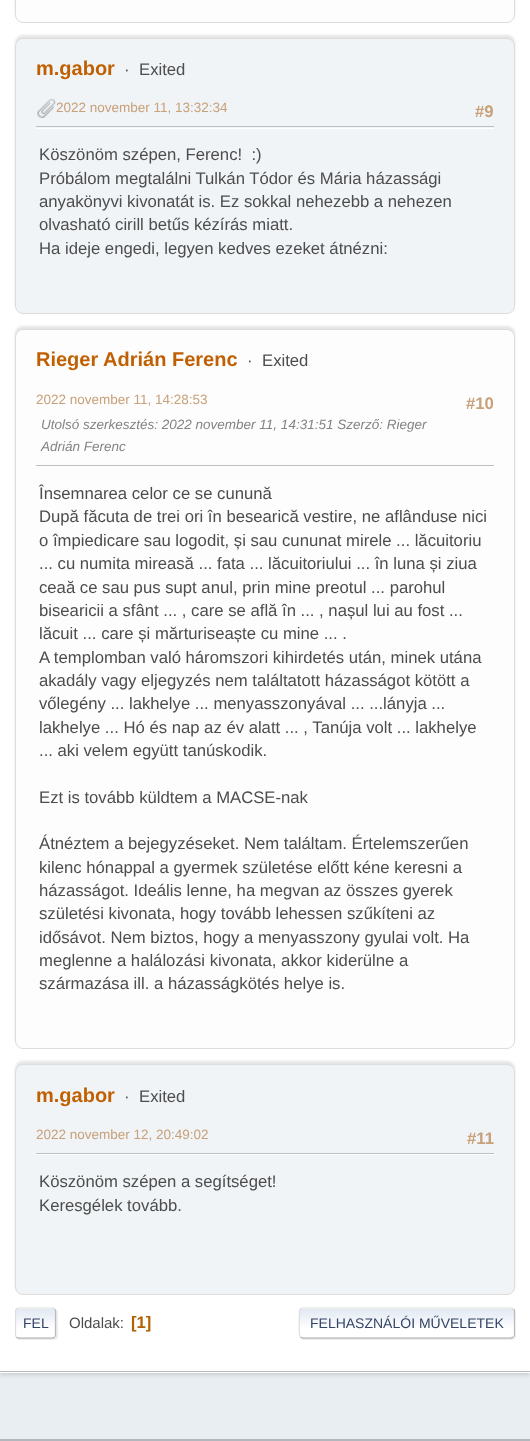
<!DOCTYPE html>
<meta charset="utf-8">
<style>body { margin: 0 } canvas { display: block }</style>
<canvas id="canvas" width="530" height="1441"></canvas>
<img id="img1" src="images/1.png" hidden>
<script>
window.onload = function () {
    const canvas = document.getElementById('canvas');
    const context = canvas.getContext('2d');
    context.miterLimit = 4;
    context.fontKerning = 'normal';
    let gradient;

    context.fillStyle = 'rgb(233, 238, 242)';
    context.fillRect(0, 0, 530, 1441);
    context.fillStyle = 'rgba(0, 0, 0, 0.14)';
    context.filter = 'blur(2px)';
    context.beginPath();
    context.rect(0, -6, 530, 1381);
    context.fill();
    context.filter = 'none';
    context.fillStyle = 'rgb(255, 255, 255)';
    context.fillRect(0, 0, 530, 1373);
    context.fillStyle = 'rgb(184, 184, 184)';
    context.fillRect(0, 1371, 530, 1);
    context.fillStyle = 'rgba(0, 0, 0, 0.1)';
    context.filter = 'blur(1px)';
    context.beginPath();
    context.roundRect(15, -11, 500, 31, 8);
    context.fill();
    context.filter = 'none';
    context.fillStyle = 'rgb(253, 253, 253)';
    context.beginPath();
    context.roundRect(15.5, -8.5, 499, 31, 7.5);
    context.fill();
    context.strokeStyle = 'rgb(221, 221, 221)';
    context.stroke();
    context.fillStyle = 'rgba(0, 0, 0, 0.1)';
    context.filter = 'blur(1px)';
    context.beginPath();
    context.roundRect(15, 35, 500, 276, 8);
    context.fill();
    context.filter = 'none';
    context.fillStyle = 'rgb(240, 244, 247)';
    context.beginPath();
    context.roundRect(15.5, 38.5, 499, 275, 7.5);
    context.fill();
    context.stroke();
    context.drawImage(document.getElementById('img1'), 37, 99, 19, 19);
    context.fillStyle = 'rgb(255, 255, 255)';
    context.fillRect(36, 128, 458, 1);
    context.fillStyle = 'rgb(191, 191, 191)';
    context.fillRect(36, 126, 458, 1);
    context.fillStyle = 'rgba(0, 0, 0, 0.1)';
    context.filter = 'blur(1px)';
    context.beginPath();
    context.roundRect(15, 326, 500, 720, 8);
    context.fill();
    context.filter = 'none';
    context.fillStyle = 'rgb(253, 253, 253)';
    context.beginPath();
    context.roundRect(15.5, 329.5, 499, 719, 7.5);
    context.fill();
    context.stroke();
    context.fillStyle = 'rgb(191, 191, 191)';
    context.fillRect(36, 465, 458, 1);
    context.fillStyle = 'rgba(0, 0, 0, 0.1)';
    context.filter = 'blur(1px)';
    context.beginPath();
    context.roundRect(15, 1061, 500, 232, 8);
    context.fill();
    context.filter = 'none';
    context.fillStyle = 'rgb(240, 244, 247)';
    context.beginPath();
    context.roundRect(15.5, 1064.5, 499, 230, 7.5);
    context.fill();
    context.stroke();
    context.fillStyle = 'rgb(255, 255, 255)';
    context.fillRect(36, 1154, 458, 1);
    context.fillStyle = 'rgb(191, 191, 191)';
    context.fillRect(36, 1153, 458, 1);
    context.fillStyle = 'rgba(221, 221, 221, 0.57)';
    context.filter = 'blur(0.5px)';
    context.beginPath();
    context.roundRect(16, 1309, 42, 31, 4);
    context.fill();
    context.filter = 'none';
    context.fillStyle = 'rgb(255, 255, 255)';
    context.beginPath();
    context.roundRect(15, 1308, 41, 31, 4);
    context.fill();
    context.save();
    context.beginPath();
    context.roundRect(15, 1308, 41, 31, 4);
    context.clip();
    gradient = context.createLinearGradient(36, 1309, 36, 1338);
    gradient.addColorStop(0, 'rgb(226, 233, 243)');
    gradient.addColorStop(0.7, 'rgb(255, 255, 255)');
    context.fillStyle = gradient;
    context.fillRect(15, 1309, 41, 29);
    gradient = context.createLinearGradient(36, 1338, 36, 1366);
    gradient.addColorStop(0, 'rgb(226, 233, 243)');
    gradient.addColorStop(0.7, 'rgb(255, 255, 255)');
    context.fillStyle = gradient;
    context.fillRect(15, 1338, 41, 1);
    context.restore();
    context.beginPath();
    context.moveTo(54.5, 1309);
    context.bezierCurveTo(55.5, 1309.5, 55.5, 1310.5, 55.5, 1311);
    context.lineTo(55.5, 1335);
    context.bezierCurveTo(55.5, 1336, 55.5, 1336.5, 54.5, 1337);
    context.strokeStyle = 'rgb(187, 187, 187)';
    context.lineWidth = 1.2;
    context.stroke();
    context.beginPath();
    context.moveTo(54.5, 1337);
    context.bezierCurveTo(54, 1338, 53.5, 1338, 52.5, 1338);
    context.lineTo(19, 1338);
    context.bezierCurveTo(18, 1338, 17, 1338, 16.5, 1337);
    context.strokeStyle = 'rgb(170, 170, 170)';
    context.stroke();
    context.save();
    context.beginPath();
    context.rect(15, 1301, 500, 44);
    context.clip();
    context.beginPath();
    context.moveTo(16.5, 1337);
    context.bezierCurveTo(16, 1336.5, 15.5, 1336, 15.5, 1335);
    context.lineTo(15.5, 1311);
    context.bezierCurveTo(15.5, 1310.5, 16, 1309.5, 16.5, 1309);
    context.bezierCurveTo(17, 1308.5, 18, 1308, 19, 1308);
    context.lineTo(52.5, 1308);
    context.bezierCurveTo(53.5, 1308, 54, 1308.5, 54.5, 1309);
    context.strokeStyle = 'rgb(221, 221, 221)';
    context.stroke();
    context.restore();
    context.save();
    context.beginPath();
    context.moveTo(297, 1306);
    context.lineTo(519, 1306);
    context.lineTo(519, 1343);
    context.lineTo(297, 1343);
    context.closePath();
    context.moveTo(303, 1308);
    context.lineTo(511, 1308);
    context.bezierCurveTo(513, 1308, 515, 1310, 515, 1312);
    context.lineTo(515, 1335);
    context.bezierCurveTo(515, 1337, 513, 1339, 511, 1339);
    context.lineTo(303, 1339);
    context.bezierCurveTo(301, 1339, 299, 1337, 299, 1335);
    context.lineTo(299, 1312);
    context.bezierCurveTo(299, 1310, 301, 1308, 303, 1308);
    context.closePath();
    context.clip('evenodd');
    context.fillStyle = 'rgba(221, 221, 221, 0.57)';
    context.filter = 'blur(0.5px)';
    context.beginPath();
    context.roundRect(300, 1309, 216, 31, 4);
    context.fill();
    context.filter = 'none';
    context.restore();
    context.beginPath();
    context.roundRect(299, 1308, 216, 31, 4);
    context.fill();
    context.save();
    context.beginPath();
    context.roundRect(299, 1308, 216, 31, 4);
    context.clip();
    gradient = context.createLinearGradient(407, 1309, 407, 1338);
    gradient.addColorStop(0, 'rgb(226, 233, 243)');
    gradient.addColorStop(0.7, 'rgb(255, 255, 255)');
    context.fillStyle = gradient;
    context.fillRect(299, 1309, 216, 29);
    gradient = context.createLinearGradient(407, 1338, 407, 1366);
    gradient.addColorStop(0, 'rgb(226, 233, 243)');
    gradient.addColorStop(0.7, 'rgb(255, 255, 255)');
    context.fillStyle = gradient;
    context.fillRect(299, 1338, 216, 1);
    context.restore();
    context.save();
    context.beginPath();
    context.rect(15, 1301, 500, 44);
    context.clip();
    context.beginPath();
    context.moveTo(513.5, 1309);
    context.bezierCurveTo(514, 1309.5, 514.5, 1310.5, 514.5, 1311);
    context.lineTo(514.5, 1335);
    context.bezierCurveTo(514.5, 1336, 514, 1336.5, 513.5, 1337);
    context.strokeStyle = 'rgb(187, 187, 187)';
    context.stroke();
    context.restore();
    context.beginPath();
    context.moveTo(513.5, 1337);
    context.lineTo(511, 1338);
    context.lineTo(302.5, 1338);
    context.lineTo(300.5, 1337);
    context.stroke();
    context.beginPath();
    context.moveTo(300.5, 1337);
    context.bezierCurveTo(298, 1335, 299.5, 1319, 299.5, 1315);
    context.bezierCurveTo(299.5, 1313, 298.5, 1308, 302.5, 1308);
    context.lineTo(511, 1308);
    context.lineTo(513.5, 1309);
    context.strokeStyle = 'rgb(221, 221, 221)';
    context.stroke();
    context.fillStyle = 'rgb(178, 182, 189)';
    context.fillRect(0, 1439, 530, 2);
    context.font = 'bold 20px Liberation Sans';
    context.fillStyle = 'rgb(192, 96, 2)';
    context.fillText('m.gabor', 36, 75);
    context.font = '16.7px Liberation Sans';
    context.fillStyle = 'rgb(77, 77, 77)';
    context.fillText('·', 124, 75);
    context.fillText('Exited', 139, 75);
    context.font = '13.5px Liberation Sans';
    context.fillStyle = 'rgb(200, 160, 121)';
    context.fillText('2022 november 11, 13:32:34', 56, 112);
    context.font = 'bold 16.7px Liberation Sans';
    context.fillText('#9', 475, 117);
    context.font = '16.7px Liberation Sans';
    context.fillStyle = 'rgb(77, 77, 77)';
    context.fillText('Köszönöm szépen, Ferenc!  :)', 39, 160);
    context.fillText('Próbálom megtalálni Tulkán Tódor és Mária házassági', 39, 184);
    context.fillText('anyakönyvi kivonatát is. Ez sokkal nehezebb a nehezen', 39, 207);
    context.fillText('olvasható cirill betűs kézírás miatt.', 39, 230);
    context.fillText('Ha ideje engedi, legyen kedves ezeket átnézni:', 39, 254);
    context.font = 'bold 20px Liberation Sans';
    context.fillStyle = 'rgb(192, 96, 2)';
    context.fillText('Rieger Adrián Ferenc', 36, 366);
    context.font = '16.7px Liberation Sans';
    context.fillStyle = 'rgb(77, 77, 77)';
    context.fillText('·', 247, 366);
    context.fillText('Exited', 262, 366);
    context.font = '13.5px Liberation Sans';
    context.fillStyle = 'rgb(200, 160, 121)';
    context.fillText('2022 november 11, 14:28:53', 36, 404);
    context.font = 'italic 13.5px Liberation Sans';
    context.fillStyle = 'rgb(132, 132, 132)';
    context.fillText('Utolsó szerkesztés: 2022 november 11, 14:31:51 Szerző: Rieger', 41, 429);
    context.fillText('Adrián Ferenc', 41, 451);
    context.font = 'bold 16.7px Liberation Sans';
    context.fillStyle = 'rgb(200, 160, 121)';
    context.fillText('#10', 466, 409);
    context.font = '16.7px Liberation Sans';
    context.fillStyle = 'rgb(77, 77, 77)';
    context.fillText('Însemnarea celor ce se cunună', 39, 499);
    context.fillText('După făcuta de trei ori în besearică vestire, ne aflânduse nici', 39, 522);
    context.fillText('o împiedicare sau logodit, și sau cununat mirele ... lăcuitoriu', 39, 546);
    context.fillText('... cu numita mireasă ... fata ... lăcuitoriului ... în luna și ziua', 39, 569);
    context.fillText('ceaă ce sau pus supt anul, prin mine preotul ... parohul', 39, 593);
    context.fillText('bisearicii a sfânt ... , care se află în ... , nașul lui au fost ...', 39, 616);
    context.fillText('lăcuit ... care și mărturiseaște cu mine ... .', 39, 639);
    context.fillText('A templomban való háromszori kihirdetés után, minek utána', 39, 663);
    context.fillText('akadály vagy eljegyzés nem találtatott házasságot kötött a', 39, 686);
    context.fillText('vőlegény ... lakhelye ... menyasszonyával ... ...lányja ...', 39, 709);
    context.fillText('lakhelye ... Hó és nap az év alatt ... , Tanúja volt ... lakhelye', 39, 733);
    context.fillText('... aki velem együtt tanúskodik.', 39, 756);
    context.fillText('Ezt is tovább küldtem a MACSE-nak', 39, 803);
    context.fillText('Átnéztem a bejegyzéseket. Nem találtam. Értelemszerűen', 39, 849);
    context.fillText('kilenc hónappal a gyermek születése előtt kéne keresni a', 39, 873);
    context.fillText('házasságot. Ideális lenne, ha megvan az összes gyerek', 39, 896);
    context.fillText('születési kivonata, hogy tovább lehessen szűkíteni az', 39, 919);
    context.fillText('idősávot. Nem biztos, hogy a menyasszony gyulai volt. Ha', 39, 943);
    context.fillText('meglenne a halálozási kivonata, akkor kiderülne a', 39, 966);
    context.fillText('származása ill. a házasságkötés helye is.', 39, 989);
    context.font = 'bold 20px Liberation Sans';
    context.fillStyle = 'rgb(192, 96, 2)';
    context.fillText('m.gabor', 36, 1102);
    context.font = '16.7px Liberation Sans';
    context.fillStyle = 'rgb(77, 77, 77)';
    context.fillText('·', 124, 1102);
    context.fillText('Exited', 139, 1102);
    context.font = '13.5px Liberation Sans';
    context.fillStyle = 'rgb(200, 160, 121)';
    context.fillText('2022 november 12, 20:49:02', 36, 1139);
    context.font = 'bold 16.7px Liberation Sans';
    context.fillText('#11', 467, 1144);
    context.font = '16.7px Liberation Sans';
    context.fillStyle = 'rgb(77, 77, 77)';
    context.fillText('Köszönöm szépen a segítséget!', 39, 1187);
    context.fillText('Keresgélek tovább.', 39, 1211);
    context.font = '14px Liberation Sans';
    context.fillStyle = 'rgb(51, 68, 102)';
    context.fillText('FEL', 23, 1328);
    context.font = '15px Liberation Sans';
    context.fillStyle = 'rgb(77, 77, 77)';
    context.fillText('Oldalak:', 69, 1328);
    context.font = 'bold 16.7px Liberation Sans';
    context.fillStyle = 'rgb(180, 97, 0)';
    context.fillText('[1]', 131, 1328);
    context.font = '14px Liberation Sans';
    context.fillStyle = 'rgb(51, 68, 102)';
    context.fillText('FELHASZNÁLÓI MŰVELETEK', 310, 1328);
};
</script>
